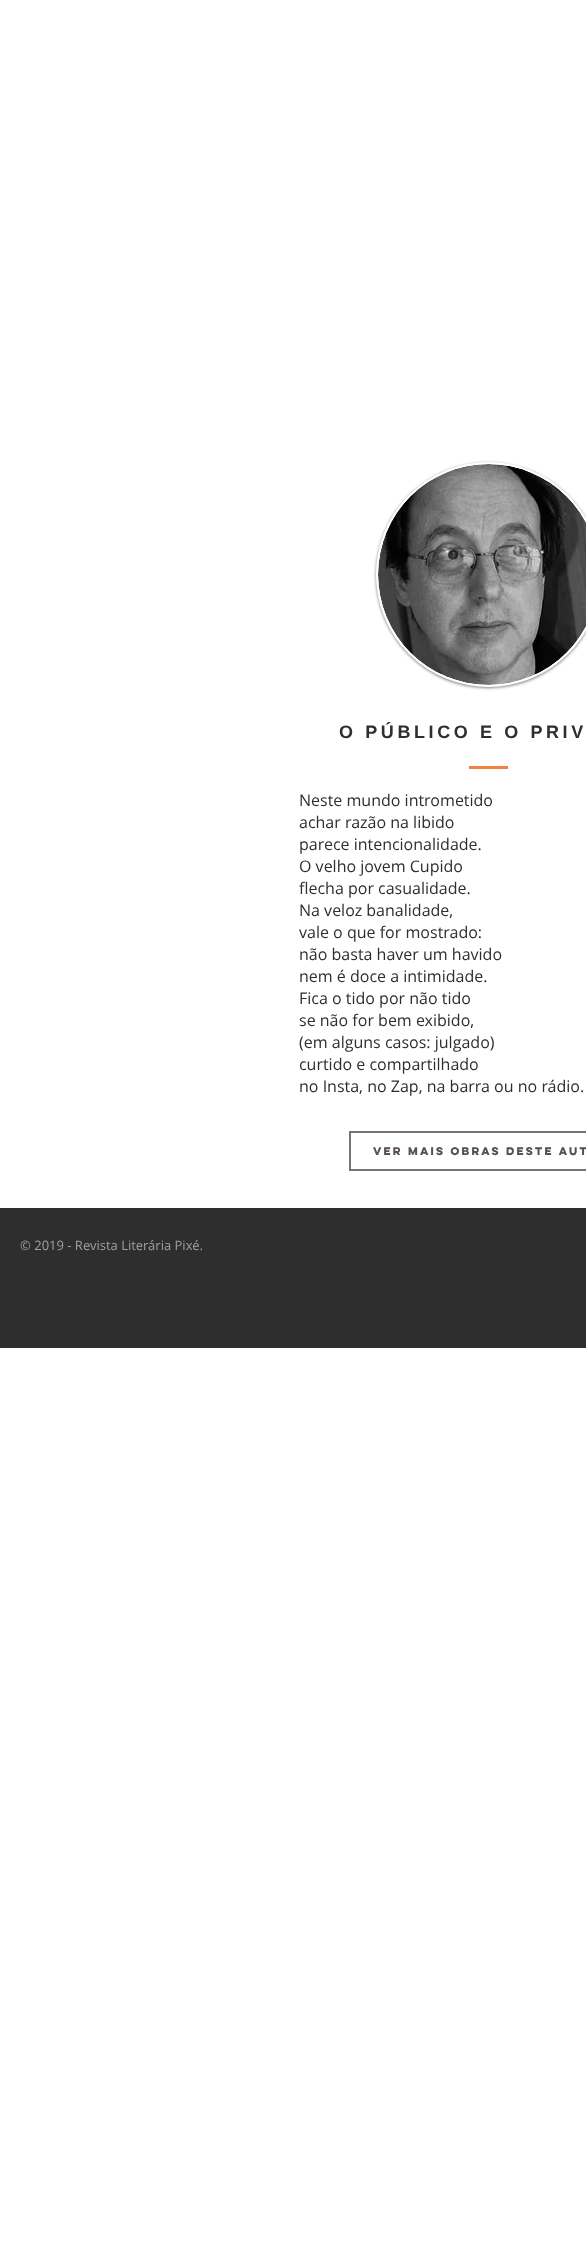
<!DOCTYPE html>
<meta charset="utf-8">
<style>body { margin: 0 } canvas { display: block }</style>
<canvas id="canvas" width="586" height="2246"></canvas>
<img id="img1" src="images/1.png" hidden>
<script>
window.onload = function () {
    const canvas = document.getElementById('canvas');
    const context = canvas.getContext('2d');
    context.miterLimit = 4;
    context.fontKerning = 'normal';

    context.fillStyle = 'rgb(255, 255, 255)';
    context.fillRect(0, 0, 586, 2246);
    context.fillStyle = 'rgba(0, 0, 0, 0.5)';
    context.filter = 'blur(1.5px)';
    context.beginPath();
    context.roundRect(376, 463, 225, 225, 112.5);
    context.fill();
    context.filter = 'none';
    context.fillStyle = 'rgb(255, 255, 255)';
    context.beginPath();
    context.arc(488.5, 574.5, 111.5, 0, 2 * Math.PI);
    context.fill();
    context.strokeStyle = 'rgb(255, 255, 255)';
    context.lineWidth = 2;
    context.stroke();
    context.drawImage(document.getElementById('img1'), 378, 464, 208, 221);
    context.fillStyle = 'rgb(242, 130, 65)';
    context.fillRect(469, 766, 39, 3);
    context.strokeStyle = 'rgb(123, 115, 111)';
    context.strokeRect(350, 1132, 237, 38);
    context.fillStyle = 'rgb(47, 46, 46)';
    context.fillRect(0, 1208, 586, 140);
    context.letterSpacing = '3.6px';
    context.font = 'bold 18px Liberation Sans';
    context.fillText('O PÚBLICO E O PRIV', 339, 738);
    context.letterSpacing = '0px';
    context.font = '16px Open Sans';
    context.fillText('Neste mundo intrometido', 299, 806);
    context.fillText('achar razão na libido', 299, 828);
    context.fillText('parece intencionalidade.', 299, 850);
    context.fillText('O velho jovem Cupido', 299, 872);
    context.fillText('flecha por casualidade.', 299, 894);
    context.fillText('Na veloz banalidade,', 299, 916);
    context.fillText('vale o que for mostrado:', 299, 938);
    context.fillText('não basta haver um havido', 299, 960);
    context.fillText('nem é doce a intimidade.', 299, 982);
    context.fillText('Fica o tido por não tido', 299, 1004);
    context.fillText('se não for bem exibido,', 299, 1026);
    context.fillText('(em alguns casos: julgado)', 299, 1048);
    context.fillText('curtido e compartilhado', 299, 1070);
    context.fillText('no Insta, no Zap, na barra ou no rádio.', 299, 1092);
    context.font = 'bold 10px "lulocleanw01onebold"';
    context.fillStyle = 'rgb(89, 81, 77)';
    context.fillText('VER MAIS OBRAS DESTE AUT', 373, 1155);
    context.font = '13px Open Sans';
    context.fillStyle = 'rgb(160, 160, 159)';
    context.fillText('© 2019 - Revista Literária Pixé.', 20, 1250);
};
</script>
